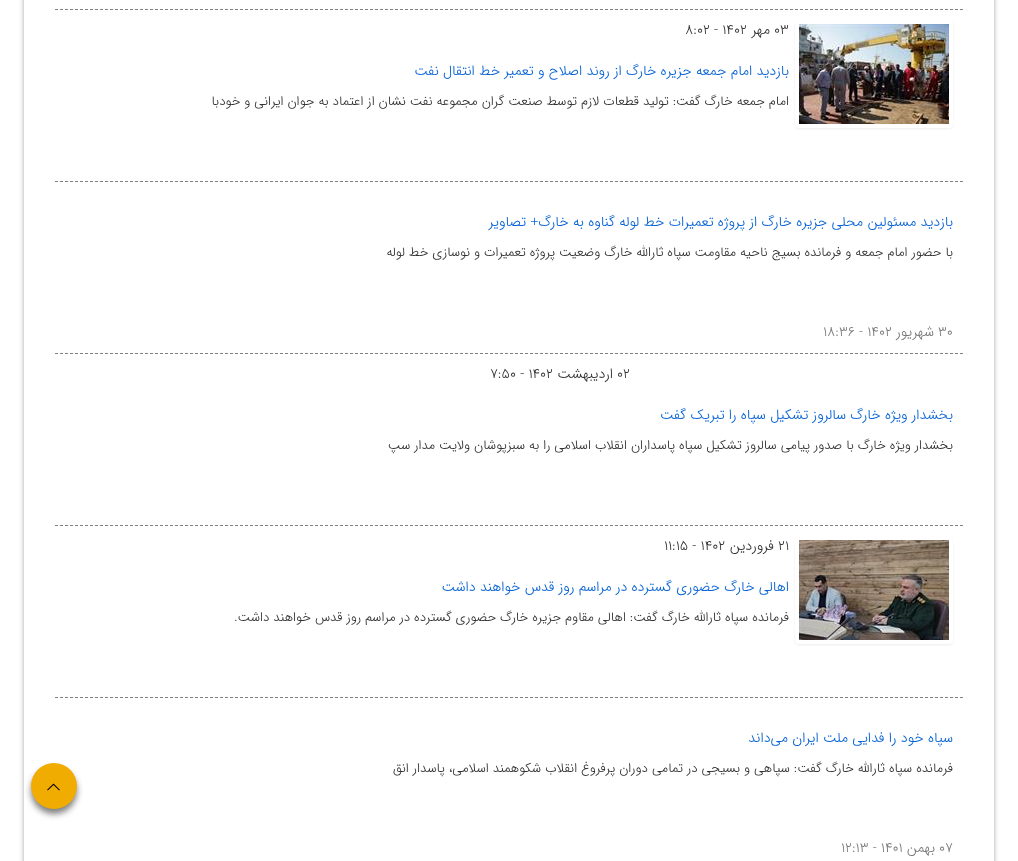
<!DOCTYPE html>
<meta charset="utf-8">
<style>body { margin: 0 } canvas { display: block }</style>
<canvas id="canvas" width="1018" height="861"></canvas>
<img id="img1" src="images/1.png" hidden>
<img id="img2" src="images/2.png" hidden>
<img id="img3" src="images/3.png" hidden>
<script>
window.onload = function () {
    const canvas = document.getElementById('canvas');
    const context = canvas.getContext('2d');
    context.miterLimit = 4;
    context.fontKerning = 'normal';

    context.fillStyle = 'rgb(255, 255, 255)';
    context.fillRect(0, 0, 1018, 861);
    context.save();
    context.beginPath();
    context.moveTo(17, 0);
    context.lineTo(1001, 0);
    context.lineTo(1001, 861);
    context.lineTo(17, 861);
    context.closePath();
    context.moveTo(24, -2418);
    context.lineTo(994, -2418);
    context.lineTo(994, 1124);
    context.lineTo(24, 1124);
    context.closePath();
    context.clip('evenodd');
    context.fillStyle = 'rgba(0, 0, 0, 0.24)';
    context.filter = 'blur(2px)';
    context.beginPath();
    context.rect(24, -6, 970, 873);
    context.fill();
    context.filter = 'none';
    context.restore();
    context.save();
    context.beginPath();
    context.moveTo(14, 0);
    context.lineTo(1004, 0);
    context.lineTo(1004, 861);
    context.lineTo(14, 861);
    context.closePath();
    context.moveTo(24, -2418);
    context.lineTo(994, -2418);
    context.lineTo(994, 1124);
    context.lineTo(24, 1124);
    context.closePath();
    context.clip('evenodd');
    context.fillStyle = 'rgba(0, 0, 0, 0.12)';
    context.filter = 'blur(3px)';
    context.beginPath();
    context.rect(24, -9, 970, 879);
    context.fill();
    context.filter = 'none';
    context.restore();
    context.beginPath();
    context.moveTo(55, 9.5);
    context.lineTo(963, 9.5);
    context.strokeStyle = 'rgb(129, 128, 128)';
    context.setLineDash([3, 2]);
    context.stroke();
    context.beginPath();
    context.moveTo(55, 181.5);
    context.lineTo(963, 181.5);
    context.stroke();
    context.fillStyle = 'rgba(0, 0, 0, 0.07)';
    context.filter = 'blur(1px)';
    context.beginPath();
    context.roundRect(795, 21, 158, 108, 4);
    context.fill();
    context.filter = 'none';
    context.fillStyle = 'rgb(255, 255, 255)';
    context.beginPath();
    context.roundRect(795, 20, 158, 108, 4);
    context.fill();
    context.drawImage(document.getElementById('img1'), 799, 24, 150, 100);
    context.beginPath();
    context.moveTo(55, 353.5);
    context.lineTo(963, 353.5);
    context.stroke();
    context.beginPath();
    context.moveTo(55, 525.5);
    context.lineTo(963, 525.5);
    context.stroke();
    context.beginPath();
    context.moveTo(55, 697.5);
    context.lineTo(963, 697.5);
    context.stroke();
    context.fillStyle = 'rgba(0, 0, 0, 0.07)';
    context.filter = 'blur(1px)';
    context.beginPath();
    context.roundRect(795, 537, 158, 108, 4);
    context.fill();
    context.filter = 'none';
    context.fillStyle = 'rgb(255, 255, 255)';
    context.beginPath();
    context.roundRect(795, 536, 158, 108, 4);
    context.fill();
    context.drawImage(document.getElementById('img2'), 799, 540, 150, 100);
    context.fillStyle = 'rgba(0, 0, 0, 0.5)';
    context.filter = 'blur(3px)';
    context.beginPath();
    context.roundRect(31, 768, 46, 46, 23);
    context.fill();
    context.filter = 'none';
    context.fillStyle = 'rgb(241, 172, 1)';
    context.beginPath();
    context.arc(54, 786, 23, 0, 2 * Math.PI);
    context.fill();
    context.drawImage(document.getElementById('img3'), 47, 783, 13, 8);
    context.font = '300 14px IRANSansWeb';
    context.fillStyle = 'rgb(51, 51, 51)';
    context.fillText('۰۳', 774, 34);
    context.direction = 'rtl';
    context.fillText('مهر', 770, 34);
    context.direction = 'ltr';
    context.fillText('۸:۰۲ - ۱۴۰۲', 685, 34);
    context.direction = 'rtl';
    context.fillStyle = 'rgb(9, 100, 213)';
    context.fillText('بازدید امام جمعه جزیره خارگ از روند اصلاح و تعمیر خط انتقال نفت', 789, 75);
    context.font = '300 13px IRANSansWeb';
    context.fillStyle = 'rgb(51, 51, 51)';
    context.fillText('امام جمعه خارگ گفت: تولید قطعات لازم توسط صنعت گران مجموعه نفت نشان از اعتماد به جوان ایرانی و خودبا', 789, 105);
    context.font = '300 14px IRANSansWeb';
    context.fillStyle = 'rgb(9, 100, 213)';
    context.fillText('بازدید مسئولین محلی جزیره خارگ از پروژه تعمیرات خط لوله گناوه به خارگ+ تصاویر', 953, 226);
    context.font = '300 13px IRANSansWeb';
    context.fillStyle = 'rgb(51, 51, 51)';
    context.fillText('با حضور امام جمعه و فرمانده بسیج ناحیه مقاومت سپاه ثارالله خارگ وضعیت پروژه تعمیرات و نوسازی خط لوله', 953, 256);
    context.direction = 'ltr';
    context.font = '300 14px IRANSansWeb';
    context.fillStyle = 'rgb(123, 121, 121)';
    context.fillText('۳۰', 938, 336);
    context.direction = 'rtl';
    context.fillText('شهریور', 934, 336);
    context.direction = 'ltr';
    context.fillText('۱۸:۳۶ - ۱۴۰۲', 823, 336);
    context.fillStyle = 'rgb(51, 51, 51)';
    context.fillText('۰۲', 617, 378);
    context.direction = 'rtl';
    context.fillText('اردیبهشت', 613, 378);
    context.direction = 'ltr';
    context.fillText('۷:۵۰ - ۱۴۰۲', 490, 378);
    context.direction = 'rtl';
    context.fillStyle = 'rgb(9, 100, 213)';
    context.fillText('بخشدار ویژه خارگ سالروز تشکیل سپاه را تبریک گفت', 953, 419);
    context.font = '300 13px IRANSansWeb';
    context.fillStyle = 'rgb(51, 51, 51)';
    context.fillText('بخشدار ویژه خارگ با صدور پیامی سالروز تشکیل سپاه پاسداران انقلاب اسلامی را به سبزپوشان ولایت مدار سپ', 953, 449);
    context.direction = 'ltr';
    context.font = '300 14px IRANSansWeb';
    context.fillText('۲۱', 778, 550);
    context.direction = 'rtl';
    context.fillText('فروردین', 774, 550);
    context.direction = 'ltr';
    context.fillText('۱۱:۱۵ - ۱۴۰۲', 664, 550);
    context.direction = 'rtl';
    context.fillStyle = 'rgb(9, 100, 213)';
    context.fillText('اهالی خارگ حضوری گسترده در مراسم روز قدس خواهند داشت', 789, 591);
    context.font = '300 13px IRANSansWeb';
    context.fillStyle = 'rgb(51, 51, 51)';
    context.fillText('فرمانده سپاه ثارالله خارگ گفت: اهالی مقاوم جزیره خارگ حضوری گسترده در مراسم روز قدس خواهند داشت.', 789, 621);
    context.font = '300 14px IRANSansWeb';
    context.fillStyle = 'rgb(9, 100, 213)';
    context.fillText('سپاه خود را فدایی ملت ایران می‌داند', 953, 742);
    context.font = '300 13px IRANSansWeb';
    context.fillStyle = 'rgb(51, 51, 51)';
    context.fillText('فرمانده سپاه ثارالله خارگ گفت: سپاهی و بسیجی در تمامی دوران پرفروغ انقلاب شکوهمند اسلامی، پاسدار انق', 953, 772);
    context.direction = 'ltr';
    context.font = '300 14px IRANSansWeb';
    context.fillStyle = 'rgb(123, 121, 121)';
    context.fillText('۰۷', 939, 852);
    context.direction = 'rtl';
    context.fillText('بهمن', 935, 852);
    context.direction = 'ltr';
    context.fillText('۱۲:۱۳ - ۱۴۰۱', 841, 852);
};
</script>
